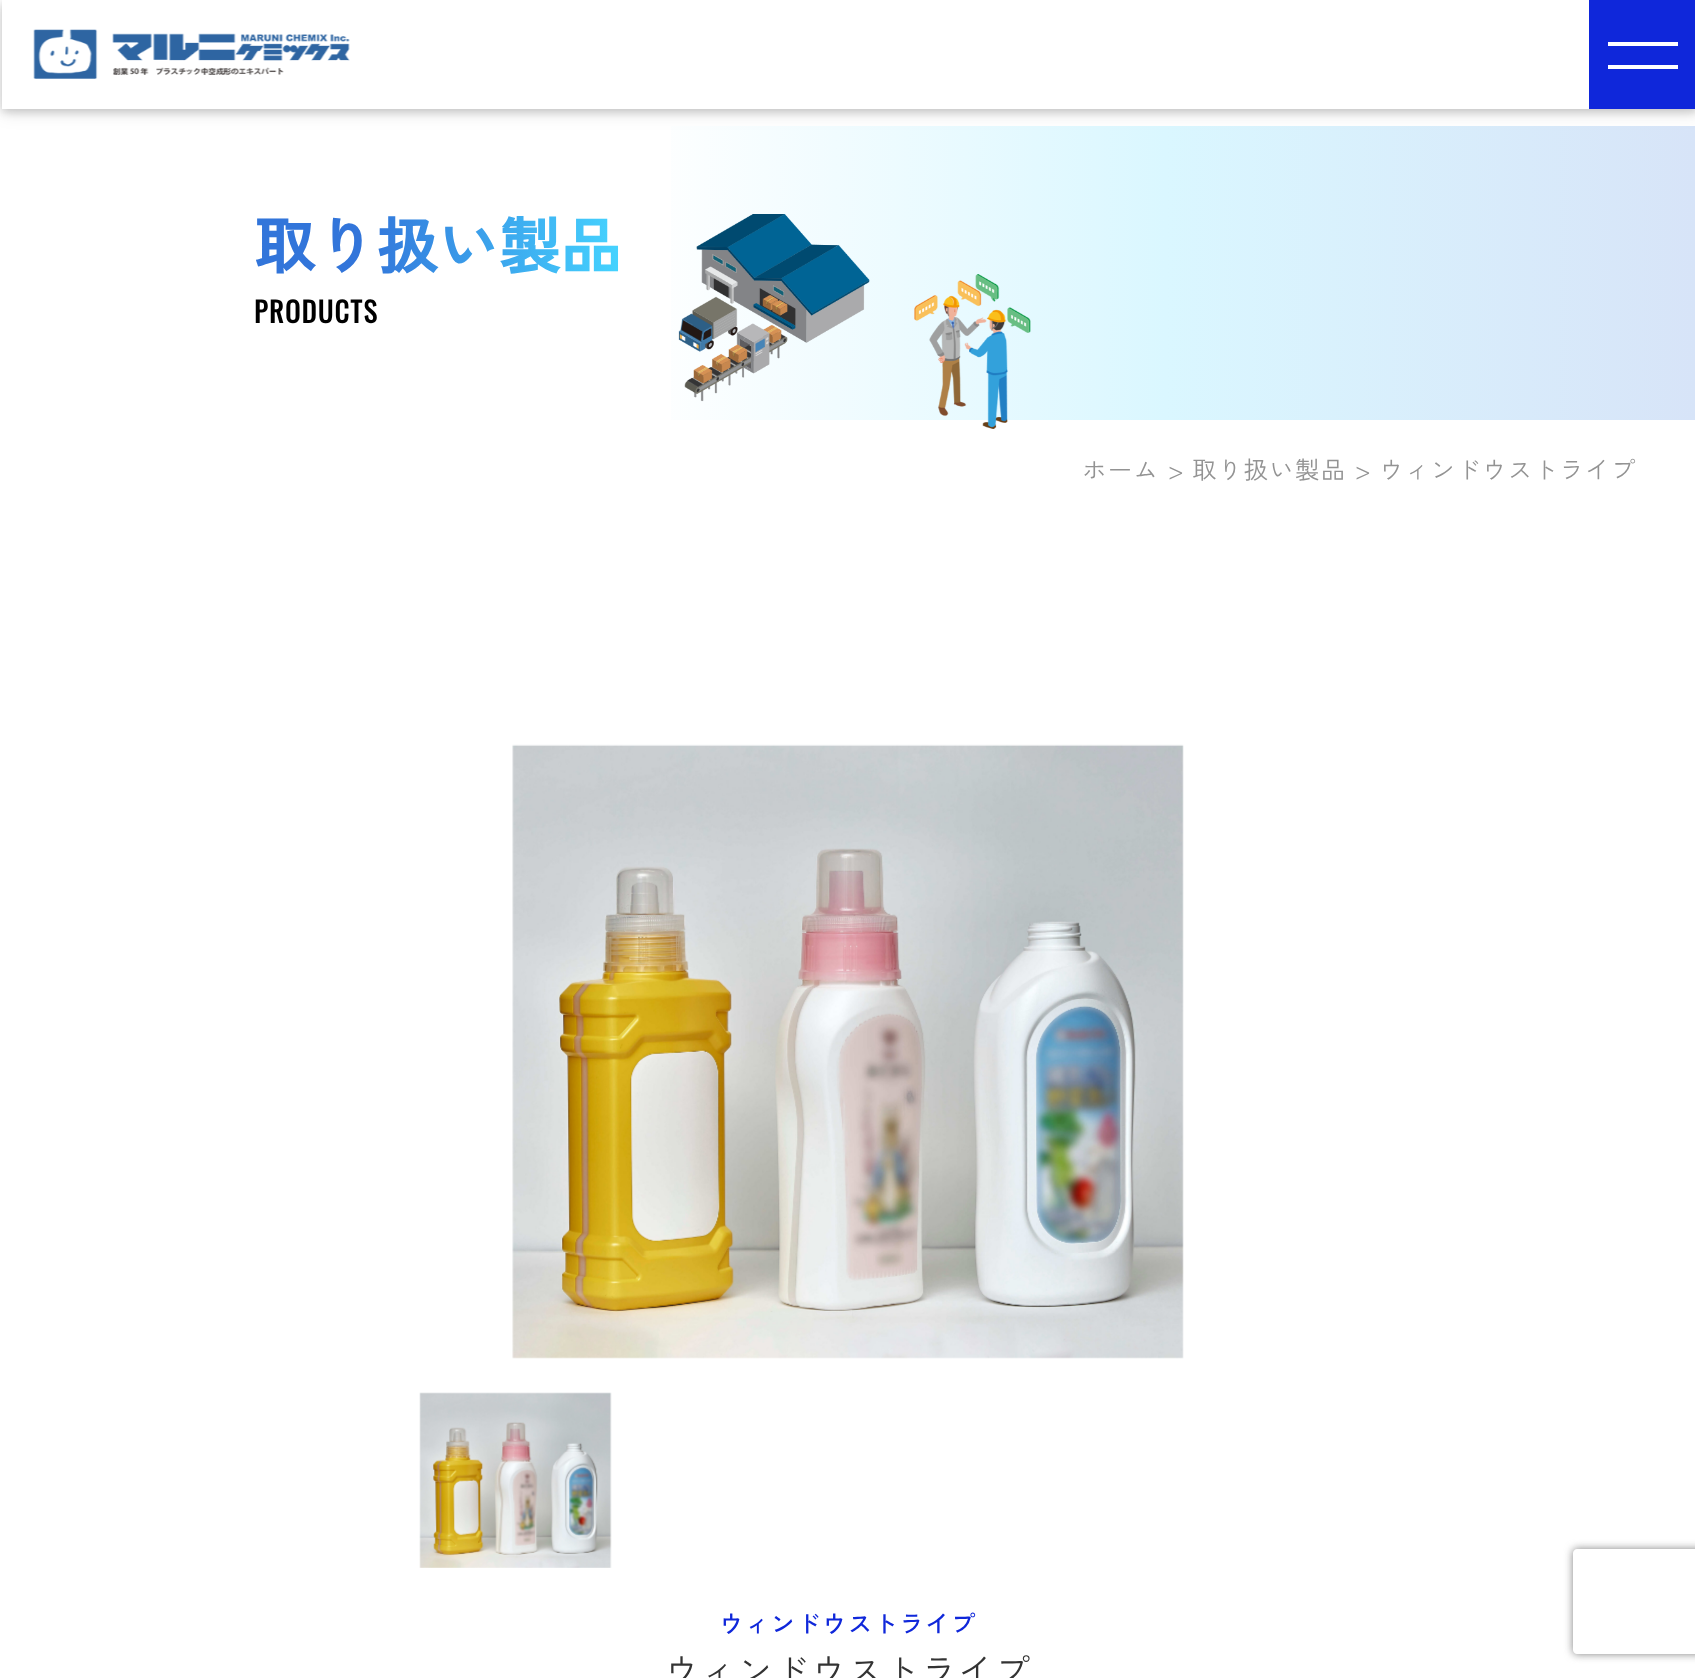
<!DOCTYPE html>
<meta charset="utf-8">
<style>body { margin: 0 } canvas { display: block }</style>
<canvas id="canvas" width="1695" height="1678"></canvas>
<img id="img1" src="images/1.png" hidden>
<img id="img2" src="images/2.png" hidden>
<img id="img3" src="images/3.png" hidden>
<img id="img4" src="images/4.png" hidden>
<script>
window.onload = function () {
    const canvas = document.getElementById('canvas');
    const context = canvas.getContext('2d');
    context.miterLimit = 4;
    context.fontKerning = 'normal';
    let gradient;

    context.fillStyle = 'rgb(255, 255, 255)';
    context.fillRect(0, 0, 1695, 1678);
    gradient = context.createLinearGradient(635, 273, 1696, 273);
    gradient.addColorStop(0, 'rgb(255, 255, 255)');
    gradient.addColorStop(0.5, 'rgb(218, 247, 255)');
    gradient.addColorStop(1, 'rgb(215, 228, 248)');
    context.fillStyle = gradient;
    context.fillRect(671, 126, 1024, 294);
    context.fillStyle = 'rgba(0, 0, 0, 0.12)';
    context.filter = 'blur(9px)';
    context.beginPath();
    context.rect(2, 4, 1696, 108);
    context.fill();
    context.filter = 'none';
    context.fillStyle = 'rgba(0, 0, 0, 0.16)';
    context.filter = 'blur(4.5px)';
    context.beginPath();
    context.rect(2, 4, 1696, 108);
    context.fill();
    context.filter = 'none';
    context.fillStyle = 'rgb(255, 255, 255)';
    context.fillRect(2, 0, 1587, 109);
    context.drawImage(document.getElementById('img1'), 33, 29, 317, 50);
    context.fillStyle = 'rgb(15, 39, 218)';
    context.fillRect(1589, 0, 106, 109);
    context.fillStyle = 'rgb(255, 255, 255)';
    context.fillRect(1608, 42, 70, 4);
    context.fillRect(1608, 65, 70, 4);
    context.drawImage(document.getElementById('img2'), 678, 214, 353, 215);
    context.drawImage(document.getElementById('img3'), 512, 744, 672, 615);
    context.drawImage(document.getElementById('img4'), 419, 1392, 193, 176);
    context.save();
    context.beginPath();
    context.moveTo(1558, 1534);
    context.lineTo(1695, 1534);
    context.lineTo(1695, 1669);
    context.lineTo(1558, 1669);
    context.closePath();
    context.moveTo(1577, 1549);
    context.lineTo(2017, 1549);
    context.bezierCurveTo(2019, 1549, 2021, 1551, 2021, 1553);
    context.lineTo(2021, 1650);
    context.bezierCurveTo(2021, 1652, 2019, 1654, 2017, 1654);
    context.lineTo(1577, 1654);
    context.bezierCurveTo(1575, 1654, 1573, 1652, 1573, 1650);
    context.lineTo(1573, 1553);
    context.bezierCurveTo(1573, 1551, 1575, 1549, 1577, 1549);
    context.closePath();
    context.clip('evenodd');
    context.fillStyle = 'rgb(128, 128, 128)';
    context.filter = 'blur(4.5px)';
    context.beginPath();
    context.roundRect(1573, 1549, 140, 105, 4);
    context.fill();
    context.filter = 'none';
    context.restore();
    context.font = 'bold 61.25px Zen Kaku Gothic New';
    gradient = context.createLinearGradient(254, 273, 622, 273);
    gradient.addColorStop(0, 'rgb(50, 117, 218)');
    gradient.addColorStop(0.3, 'rgb(50, 117, 218)');
    gradient.addColorStop(1, 'rgb(69, 212, 255)');
    context.fillStyle = gradient;
    context.fillText('取り扱い製品', 254, 269);
    context.letterSpacing = '1.5px';
    context.font = 'bold 28px Oswald';
    context.fillStyle = 'rgb(0, 0, 0)';
    context.fillText('PRODUCTS', 254, 323);
    context.letterSpacing = '1.25px';
    context.font = '24.5px Zen Kaku Gothic New';
    context.fillStyle = 'rgb(147, 147, 147)';
    context.fillText('ホーム', 1082, 479);
    context.fillText('>', 1168, 479);
    context.fillText('取り扱い製品', 1192, 479);
    context.fillText('>', 1355, 479);
    context.fillText('ウィンドウストライプ', 1379, 479);
    context.font = '500 24.5px Zen Kaku Gothic New';
    context.fillStyle = 'rgb(15, 39, 218)';
    context.fillText('ウィンドウストライプ', 719, 1633);
    context.letterSpacing = '1.75px';
    context.font = '35px Zen Kaku Gothic New';
    context.fillStyle = 'rgb(51, 51, 51)';
    context.fillText('ウィンドウストライプ', 664, 1684);
};
</script>
